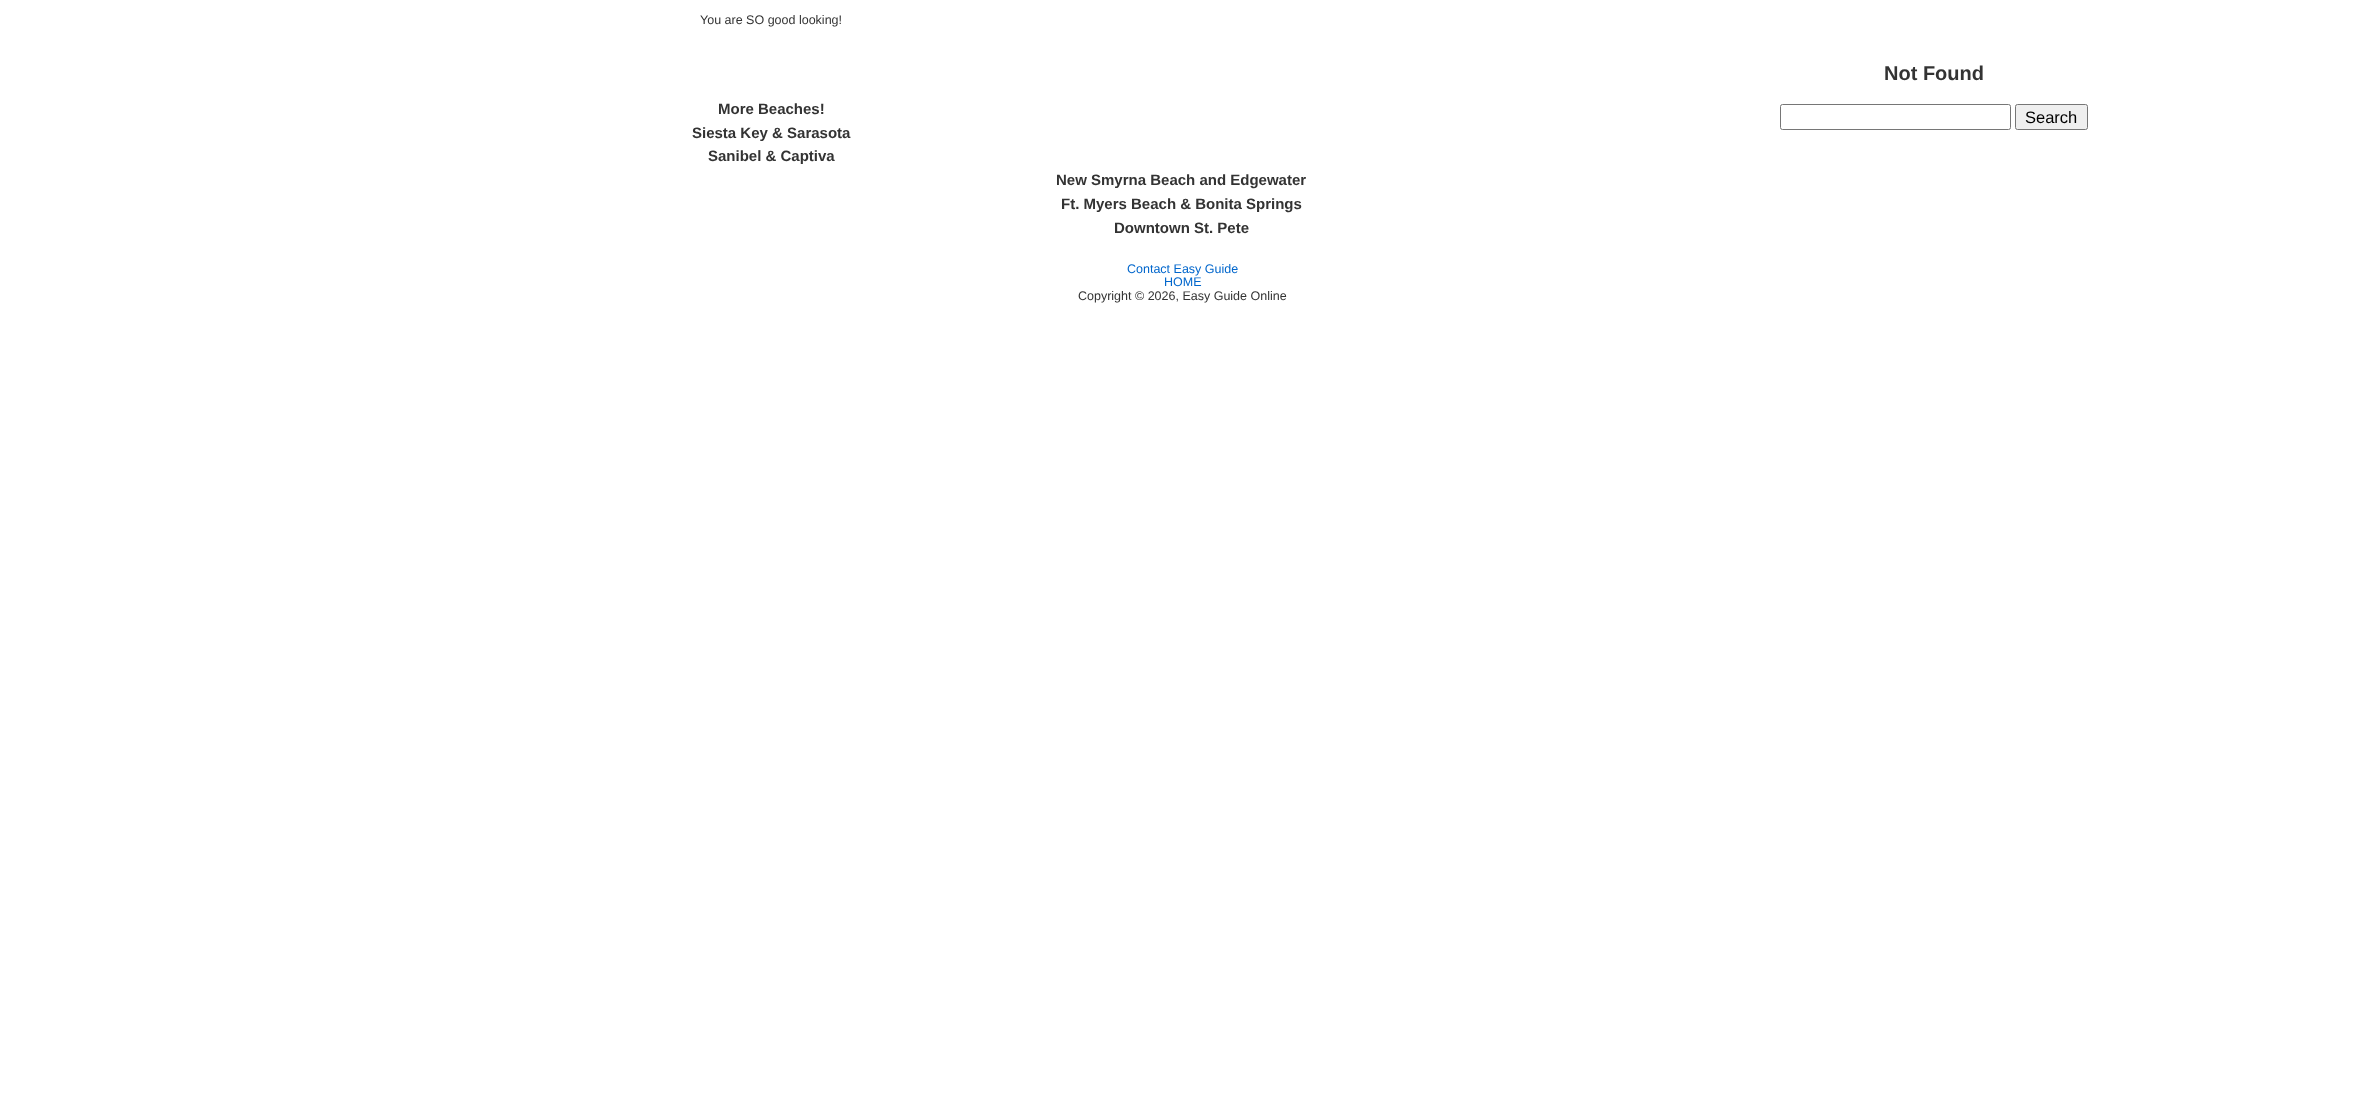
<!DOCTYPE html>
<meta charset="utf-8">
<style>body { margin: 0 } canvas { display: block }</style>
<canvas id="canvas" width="2362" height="1105"></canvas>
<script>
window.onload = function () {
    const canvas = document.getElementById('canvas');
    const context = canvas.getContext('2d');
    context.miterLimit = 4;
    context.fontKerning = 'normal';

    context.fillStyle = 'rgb(255, 255, 255)';
    context.fillRect(0, 0, 2362, 1105);
    context.beginPath();
    context.roundRect(1780.5, 104.5, 230, 25, 2);
    context.strokeStyle = 'rgb(118, 118, 118)';
    context.stroke();
    context.fillStyle = 'rgb(239, 239, 239)';
    context.beginPath();
    context.roundRect(2015.5, 104.5, 72, 25, 2);
    context.fill();
    context.stroke();
    context.font = '12.5px Liberation Sans';
    context.fillStyle = 'rgb(51, 51, 51)';
    context.fillText('You are SO good looking!', 700, 24);
    context.font = 'bold 15px Liberation Sans';
    context.fillText('More Beaches!', 718, 114);
    context.fillText('Siesta Key & Sarasota', 692, 138);
    context.fillText('Sanibel & Captiva', 708, 161);
    context.fillText('New Smyrna Beach and Edgewater', 1056, 185);
    context.fillText('Ft. Myers Beach & Bonita Springs', 1061, 209);
    context.fillText('Downtown St. Pete', 1114, 233);
    context.font = 'bold 20px Liberation Sans';
    context.fillText('Not Found', 1884, 80);
    context.font = '16.5px Liberation Sans';
    context.fillStyle = 'rgb(0, 0, 0)';
    context.fillText('Search', 2025, 123);
    context.font = '12.5px Liberation Sans';
    context.fillStyle = 'rgb(0, 102, 204)';
    context.fillText('Contact Easy Guide', 1127, 273);
    context.fillText('HOME', 1164, 286);
    context.fillStyle = 'rgb(51, 51, 51)';
    context.fillText('Copyright © 2026, Easy Guide Online', 1078, 300);
};
</script>
